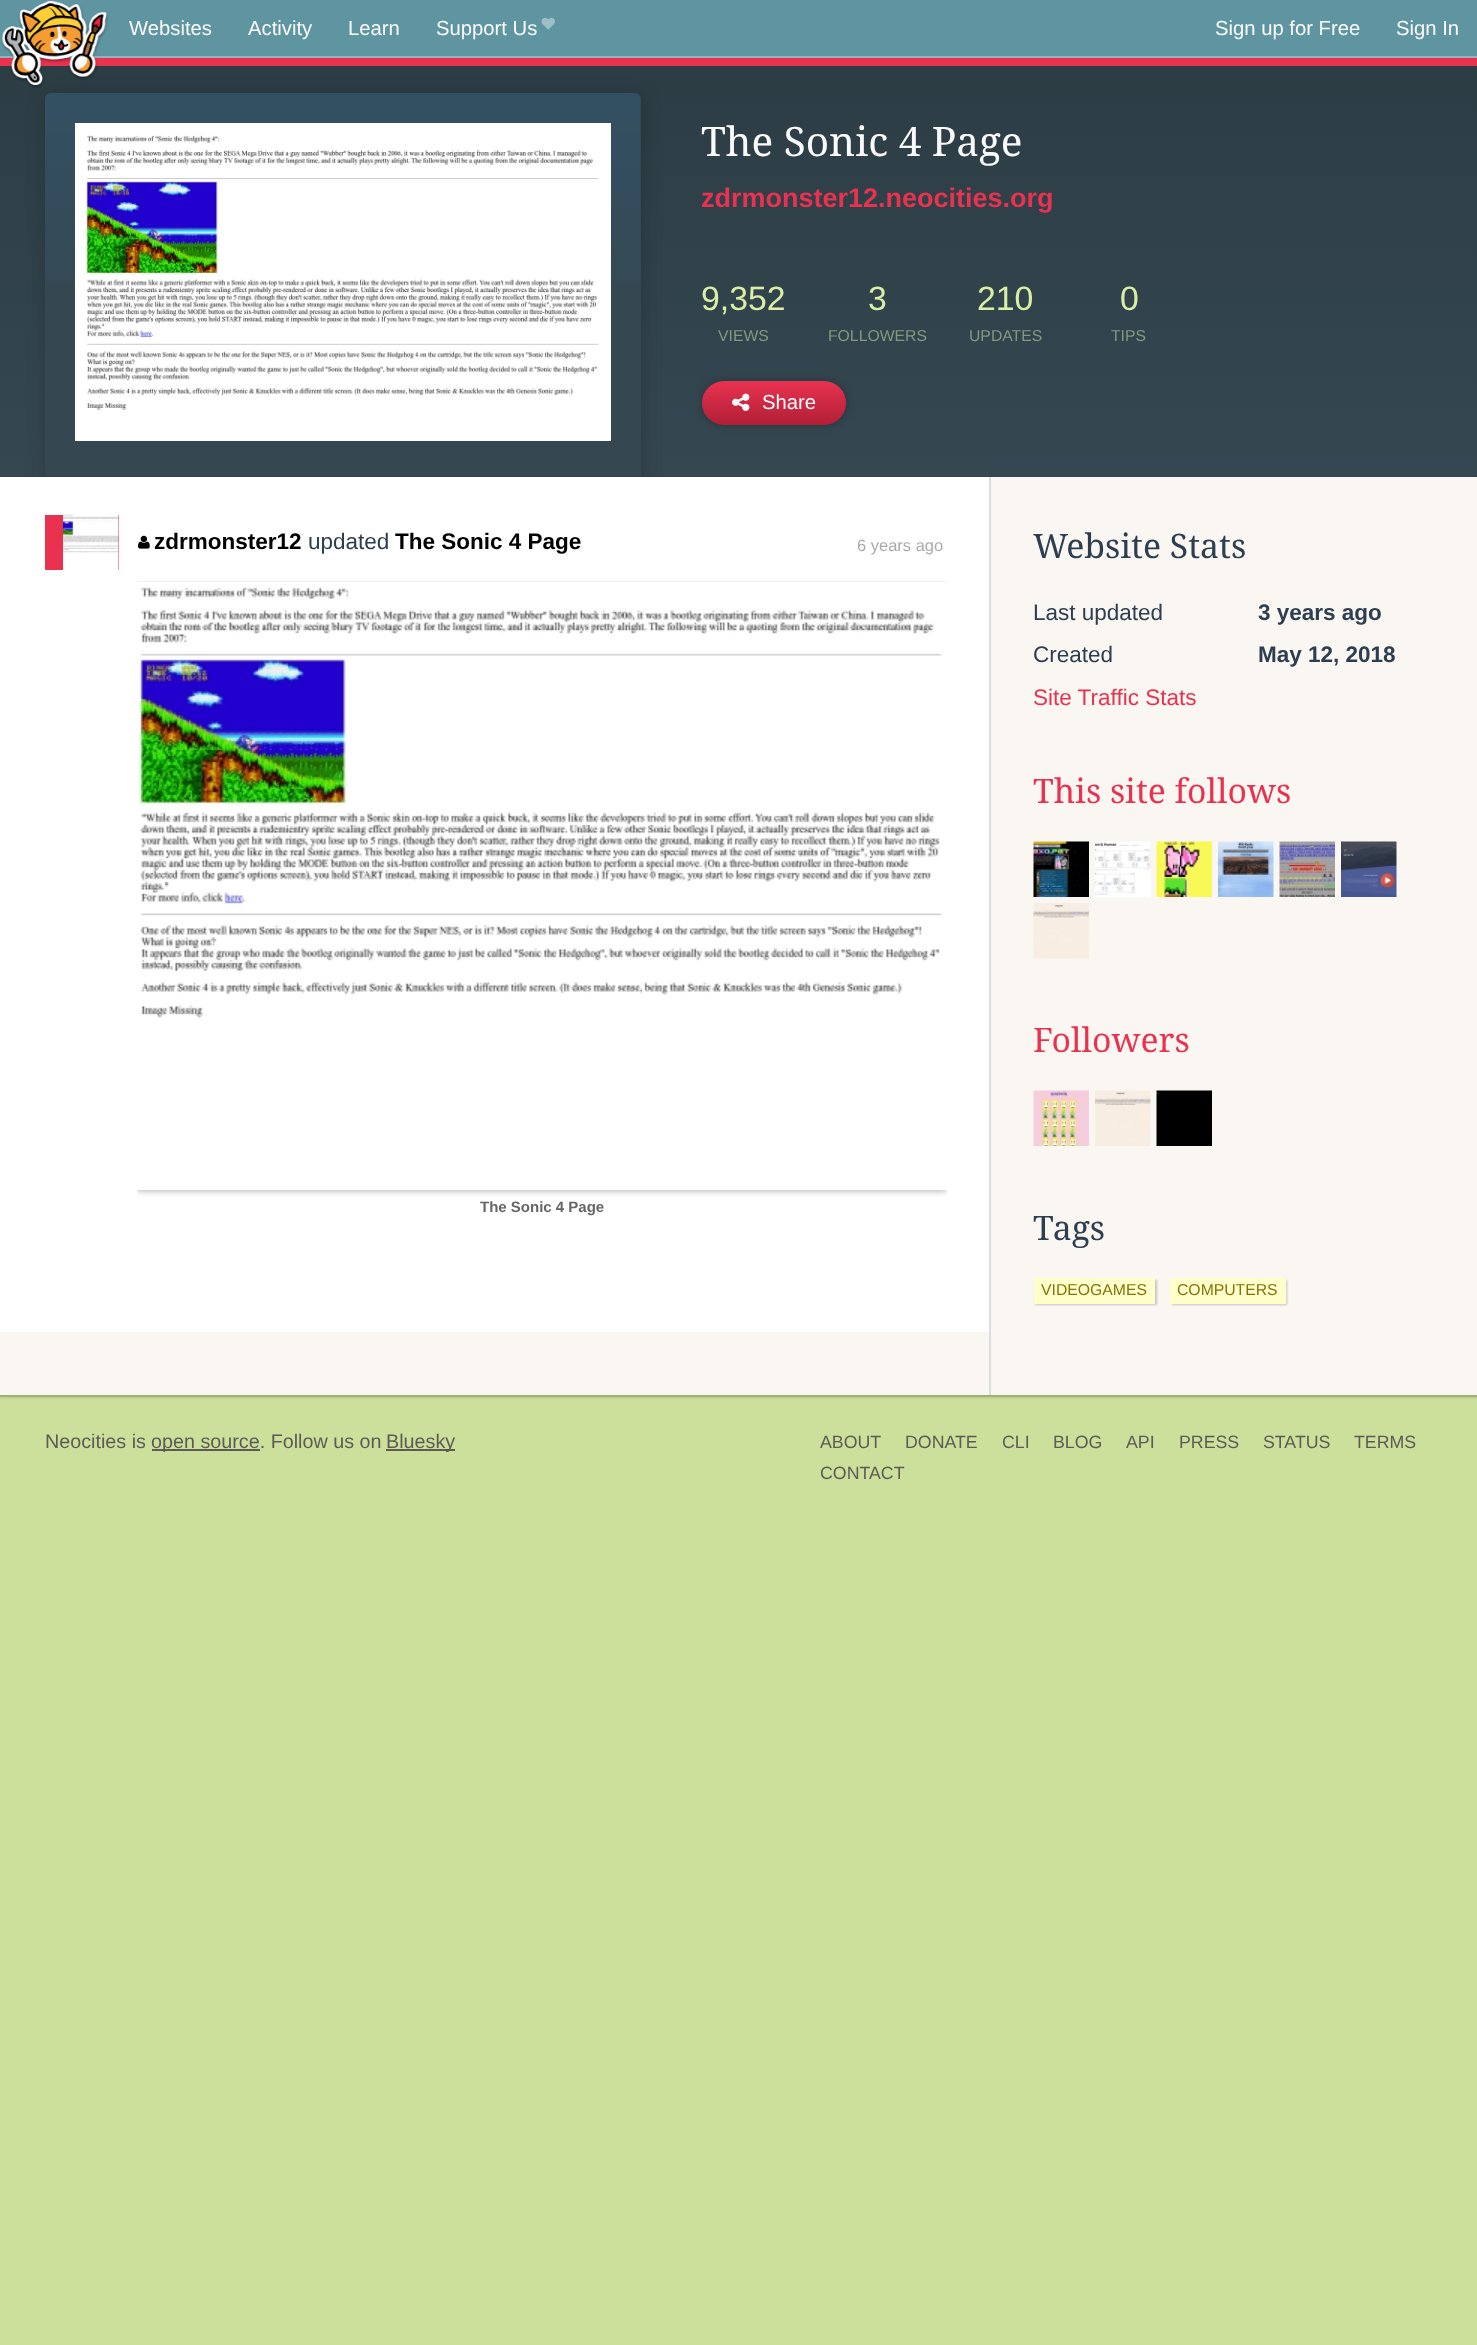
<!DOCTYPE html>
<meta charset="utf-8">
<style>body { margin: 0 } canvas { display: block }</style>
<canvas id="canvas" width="1477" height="2345"></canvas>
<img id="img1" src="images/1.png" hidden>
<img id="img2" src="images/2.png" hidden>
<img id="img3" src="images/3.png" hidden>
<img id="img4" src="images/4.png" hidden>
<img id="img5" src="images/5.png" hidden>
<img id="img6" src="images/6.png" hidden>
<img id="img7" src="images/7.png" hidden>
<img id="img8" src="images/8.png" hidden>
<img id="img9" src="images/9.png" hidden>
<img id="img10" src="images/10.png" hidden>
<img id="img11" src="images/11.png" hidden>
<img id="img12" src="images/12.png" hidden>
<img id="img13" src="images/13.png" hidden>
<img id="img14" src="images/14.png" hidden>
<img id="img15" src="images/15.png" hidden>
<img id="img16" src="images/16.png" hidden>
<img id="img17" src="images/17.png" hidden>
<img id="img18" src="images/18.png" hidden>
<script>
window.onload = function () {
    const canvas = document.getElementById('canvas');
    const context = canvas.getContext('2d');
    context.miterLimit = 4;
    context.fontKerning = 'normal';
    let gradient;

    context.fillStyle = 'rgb(204, 223, 155)';
    context.fillRect(0, 0, 1477, 2345);
    gradient = context.createLinearGradient(739, 33, 739, 477);
    gradient.addColorStop(0, 'rgb(43, 60, 67)');
    gradient.addColorStop(1, 'rgb(53, 71, 81)');
    context.fillStyle = gradient;
    context.fillRect(0, 66, 1477, 411);
    context.fillStyle = 'rgb(179, 195, 136)';
    context.fillRect(0, 1395, 1477, 2);
    context.save();
    context.beginPath();
    context.rect(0, 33, 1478, 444);
    context.clip();
    context.fillStyle = 'rgba(0, 0, 0, 0.15)';
    context.filter = 'blur(9px)';
    context.beginPath();
    context.roundRect(44, 93, 601, 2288, 9);
    context.fill();
    context.filter = 'none';
    context.restore();
    context.fillStyle = 'rgb(233, 50, 80)';
    context.fillRect(0, 58, 1477, 8);
    context.fillStyle = 'rgb(94, 149, 161)';
    context.fillRect(0, 0, 1477, 56);
    context.fillStyle = 'rgb(146, 180, 189)';
    context.fillRect(0, 56, 1477, 2);
    context.drawImage(document.getElementById('img1'), 1, 0, 108, 88);
    context.drawImage(document.getElementById('img2'), 541, 18, 14, 12);
    context.fillStyle = 'rgb(53, 71, 81)';
    context.beginPath();
    context.roundRect(45, 93, 596, 384, [6, 6, 0, 0]);
    context.fill();
    context.drawImage(document.getElementById('img3'), 45, 93, 596, 189);
    context.drawImage(document.getElementById('img4'), 84, 132, 518, 300);
    context.strokeStyle = 'rgb(255, 255, 255)';
    context.lineWidth = 9;
    context.strokeRect(79.5, 127.5, 527, 309);
    context.fillStyle = 'rgba(0, 0, 0, 0.25)';
    context.filter = 'blur(4.5px)';
    context.beginPath();
    context.roundRect(702, 381, 144, 44, 22);
    context.fill();
    context.filter = 'none';
    gradient = context.createLinearGradient(774, 381, 774, 425);
    gradient.addColorStop(0, 'rgb(233, 50, 80)');
    gradient.addColorStop(1, 'rgb(177, 31, 54)');
    context.fillStyle = gradient;
    context.beginPath();
    context.roundRect(702, 381, 144, 44, 22);
    context.fill();
    context.drawImage(document.getElementById('img5'), 732, 393, 18, 18);
    context.fillStyle = 'rgba(0, 0, 0, 0.1)';
    context.filter = 'blur(1px)';
    context.beginPath();
    context.rect(-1, 477, 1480, 921);
    context.fill();
    context.filter = 'none';
    context.fillStyle = 'rgb(250, 246, 241)';
    context.fillRect(0, 477, 1477, 918);
    context.fillStyle = 'rgb(221, 221, 221)';
    context.fillRect(989, 477, 2, 918);
    context.fillStyle = 'rgb(255, 255, 255)';
    context.fillRect(0, 477, 989, 855);
    context.fillStyle = 'rgb(233, 50, 80)';
    context.fillRect(45, 515, 74, 55);
    context.drawImage(document.getElementById('img6'), 63, 514, 56, 56);
    context.drawImage(document.getElementById('img7'), 138, 535, 12, 14);
    context.save();
    context.beginPath();
    context.rect(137, 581, 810, 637);
    context.clip();
    context.beginPath();
    context.moveTo(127, 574);
    context.lineTo(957, 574);
    context.lineTo(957, 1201);
    context.lineTo(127, 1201);
    context.closePath();
    context.moveTo(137, 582);
    context.lineTo(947, 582);
    context.lineTo(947, 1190);
    context.lineTo(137, 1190);
    context.closePath();
    context.clip('evenodd');
    context.fillStyle = 'rgba(0, 0, 0, 0.3)';
    context.filter = 'blur(3px)';
    context.beginPath();
    context.rect(137, 584, 810, 607);
    context.fill();
    context.filter = 'none';
    context.restore();
    context.drawImage(document.getElementById('img8'), 137, 586, 810, 604);
    context.drawImage(document.getElementById('img9'), 1033, 841, 56, 56);
    context.drawImage(document.getElementById('img10'), 1095, 841, 56, 56);
    context.drawImage(document.getElementById('img11'), 1156, 841, 56, 56);
    context.drawImage(document.getElementById('img12'), 1218, 841, 56, 56);
    context.drawImage(document.getElementById('img13'), 1279, 841, 56, 56);
    context.drawImage(document.getElementById('img14'), 1341, 841, 56, 56);
    context.drawImage(document.getElementById('img15'), 1033, 903, 56, 56);
    context.drawImage(document.getElementById('img16'), 1033, 1090, 56, 56);
    context.drawImage(document.getElementById('img17'), 1095, 1090, 56, 56);
    context.drawImage(document.getElementById('img18'), 1156, 1090, 56, 56);
    context.fillStyle = 'rgba(0, 0, 0, 0.2)';
    context.filter = 'blur(1px)';
    context.beginPath();
    context.rect(1035, 1280, 122, 25);
    context.fill();
    context.filter = 'none';
    context.fillStyle = 'rgb(255, 255, 204)';
    context.fillRect(1034, 1278, 121, 26);
    context.fillStyle = 'rgba(0, 0, 0, 0.2)';
    context.filter = 'blur(1px)';
    context.beginPath();
    context.rect(1172, 1280, 115, 25);
    context.fill();
    context.filter = 'none';
    context.fillStyle = 'rgb(255, 255, 204)';
    context.fillRect(1170, 1278, 116, 26);
    context.fillStyle = 'rgb(94, 91, 86)';
    context.fillRect(152, 1449, 108, 2);
    context.fillRect(386, 1449, 69, 2);
    context.font = '20.25px Liberation Sans';
    context.fillStyle = 'rgb(250, 250, 250)';
    context.fillText('Websites', 129, 35);
    context.fillText('Activity', 248, 35);
    context.fillText('Learn', 348, 35);
    context.fillText('Support Us', 436, 35);
    context.fillText('Sign up for Free', 1215, 35);
    context.fillText('Sign In', 1396, 35);
    context.font = '40.5px Droid Serif';
    context.fillText('The Sonic 4 Page', 701, 156);
    context.font = 'bold 27px Liberation Sans';
    context.fillStyle = 'rgb(233, 50, 80)';
    context.fillText('zdrmonster12.neocities.org', 701, 207);
    context.font = '33.75px Liberation Sans';
    context.fillStyle = 'rgb(218, 238, 165)';
    context.fillText('9,352', 701, 310);
    context.font = '15.75px Liberation Sans';
    context.fillStyle = 'rgb(132, 153, 126)';
    context.fillText('VIEWS', 718, 341);
    context.font = '33.75px Liberation Sans';
    context.fillStyle = 'rgb(218, 238, 165)';
    context.fillText('3', 868, 310);
    context.font = '15.75px Liberation Sans';
    context.fillStyle = 'rgb(132, 153, 126)';
    context.fillText('FOLLOWERS', 828, 341);
    context.font = '33.75px Liberation Sans';
    context.fillStyle = 'rgb(218, 238, 165)';
    context.fillText('210', 977, 310);
    context.font = '15.75px Liberation Sans';
    context.fillStyle = 'rgb(132, 153, 126)';
    context.fillText('UPDATES', 969, 341);
    context.font = '33.75px Liberation Sans';
    context.fillStyle = 'rgb(218, 238, 165)';
    context.fillText('0', 1120, 310);
    context.font = '15.75px Liberation Sans';
    context.fillStyle = 'rgb(132, 153, 126)';
    context.fillText('TIPS', 1111, 341);
    context.font = '20.25px Liberation Sans';
    context.fillStyle = 'rgb(250, 250, 250)';
    context.fillText('Share', 762, 409);
    context.font = 'bold 22.5px Liberation Sans';
    context.fillStyle = 'rgb(0, 0, 0)';
    context.fillText('zdrmonster12', 154, 549);
    context.font = '22.5px Liberation Sans';
    context.fillStyle = 'rgb(44, 62, 80)';
    context.fillText('updated', 308, 549);
    context.font = 'bold 22.5px Liberation Sans';
    context.fillStyle = 'rgb(0, 0, 0)';
    context.fillText('The Sonic 4 Page', 395, 549);
    context.font = '16.5px Liberation Sans';
    context.fillStyle = 'rgb(170, 170, 170)';
    context.fillText('6 years ago', 857, 551);
    context.font = 'bold 15px Liberation Sans';
    context.fillStyle = 'rgb(102, 102, 102)';
    context.fillText('The Sonic 4 Page', 480, 1212);
    context.font = '33.75px Droid Serif';
    context.fillStyle = 'rgb(44, 62, 80)';
    context.fillText('Website Stats', 1033, 558);
    context.font = '22.5px Liberation Sans';
    context.fillText('Last updated', 1033, 620);
    context.font = 'bold 22.5px Liberation Sans';
    context.fillText('3 years ago', 1258, 620);
    context.font = '22.5px Liberation Sans';
    context.fillText('Created', 1033, 662);
    context.font = 'bold 22.5px Liberation Sans';
    context.fillText('May 12, 2018', 1258, 662);
    context.font = '22.5px Liberation Sans';
    context.fillStyle = 'rgb(233, 50, 80)';
    context.fillText('Site Traffic Stats', 1033, 705);
    context.font = '33.75px Droid Serif';
    context.fillText('This site follows', 1033, 803);
    context.fillText('Followers', 1033, 1052);
    context.fillStyle = 'rgb(44, 62, 80)';
    context.fillText('Tags', 1033, 1240);
    context.font = '15.75px Liberation Sans';
    context.fillStyle = 'rgb(137, 113, 6)';
    context.fillText('VIDEOGAMES', 1041, 1295);
    context.fillText('COMPUTERS', 1177, 1295);
    context.font = '19.75px Liberation Sans';
    context.fillStyle = 'rgb(94, 91, 86)';
    context.fillText('Neocities is', 45, 1448);
    context.fillText('open source. Follow us on', 151, 1448);
    context.fillText('Bluesky', 386, 1448);
    context.font = '17.75px Liberation Sans';
    context.fillText('ABOUT', 820, 1448);
    context.fillText('DONATE', 905, 1448);
    context.fillText('CLI', 1002, 1448);
    context.fillText('BLOG', 1053, 1448);
    context.fillText('API', 1126, 1448);
    context.fillText('PRESS', 1179, 1448);
    context.fillText('STATUS', 1263, 1448);
    context.fillText('TERMS', 1354, 1448);
    context.fillText('CONTACT', 820, 1479);
};
</script>
